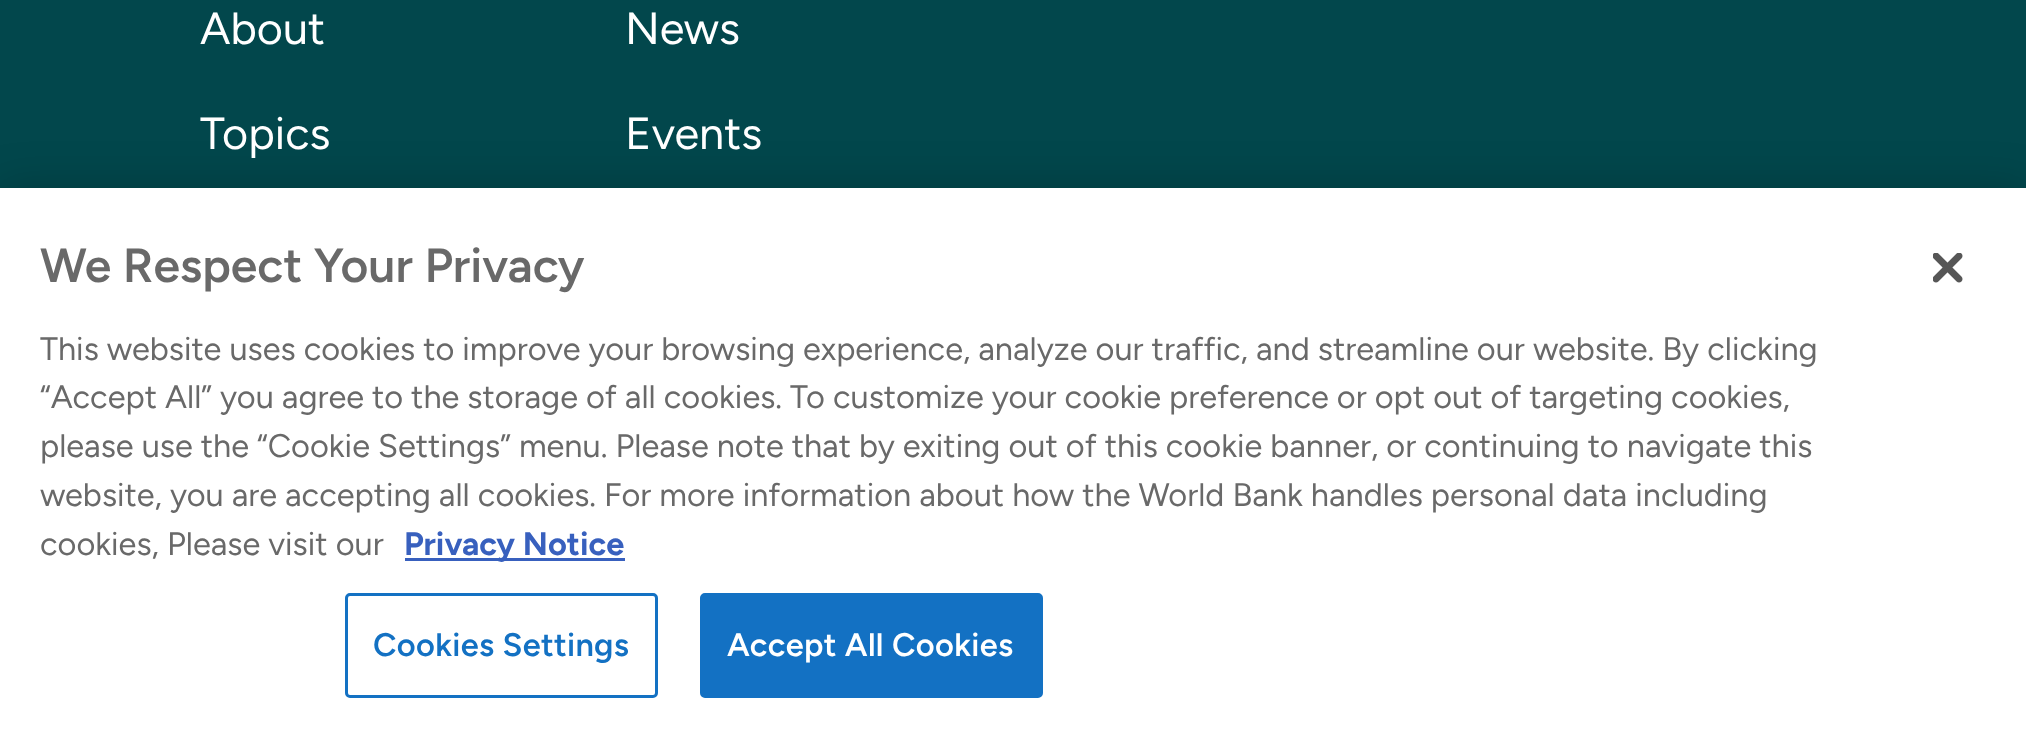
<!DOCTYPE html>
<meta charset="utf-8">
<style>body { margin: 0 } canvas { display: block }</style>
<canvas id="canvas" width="2026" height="741"></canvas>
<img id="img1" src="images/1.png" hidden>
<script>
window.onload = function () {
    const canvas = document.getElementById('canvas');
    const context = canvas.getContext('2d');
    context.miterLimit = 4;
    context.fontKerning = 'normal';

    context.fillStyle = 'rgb(2, 71, 76)';
    context.fillRect(0, 0, 2026, 741);
    context.fillStyle = 'rgba(0, 0, 0, 0.2)';
    context.filter = 'blur(22.5px)';
    context.beginPath();
    context.rect(0, 188, 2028, 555);
    context.fill();
    context.filter = 'none';
    context.fillStyle = 'rgb(255, 255, 255)';
    context.fillRect(0, 188, 2026, 553);
    context.fillStyle = 'rgb(56, 96, 190)';
    context.fillRect(405, 558, 220, 3);
    context.beginPath();
    context.roundRect(346.5, 594.5, 310, 102, 3.5);
    context.strokeStyle = 'rgb(19, 113, 195)';
    context.lineWidth = 3;
    context.stroke();
    context.fillStyle = 'rgb(19, 113, 195)';
    context.beginPath();
    context.roundRect(701.5, 594.5, 340, 102, 3.5);
    context.fill();
    context.stroke();
    context.drawImage(document.getElementById('img1'), 1933, 253, 30, 30);
    context.font = '45px Figtree';
    context.fillStyle = 'rgb(255, 255, 255)';
    context.fillText('About', 200, 44);
    context.fillText('News', 625, 44);
    context.fillText('Topics', 200, 149);
    context.fillText('Events', 625, 149);
    context.font = '600 48px Figtree';
    context.fillStyle = 'rgb(105, 105, 105)';
    context.fillText('We Respect Your Privacy', 40, 282);
    context.font = '32.52px Figtree';
    context.fillText('This website uses cookies to improve your browsing experience, analyze our traffic, and streamline our website. By clicking', 40, 360);
    context.fillText('“Accept All” you agree to the storage of all cookies. To customize your cookie preference or opt out of targeting cookies,', 40, 408);
    context.fillText('please use the “Cookie Settings” menu. Please note that by exiting out of this cookie banner, or continuing to navigate this', 40, 457);
    context.fillText('website, you are accepting all cookies.', 40, 506);
    context.fillText('For more information about how the World Bank handles personal data including', 604, 506);
    context.fillText('cookies, Please visit our', 40, 555);
    context.font = 'bold 32.52px Figtree';
    context.fillStyle = 'rgb(56, 96, 190)';
    context.fillText('Privacy Notice', 404, 555);
    context.letterSpacing = '0.3px';
    context.font = '600 32.52px Figtree';
    context.fillStyle = 'rgb(19, 113, 195)';
    context.fillText('Cookies Settings', 373, 656);
    context.fillStyle = 'rgb(255, 255, 255)';
    context.fillText('Accept All Cookies', 727, 656);
};
</script>
